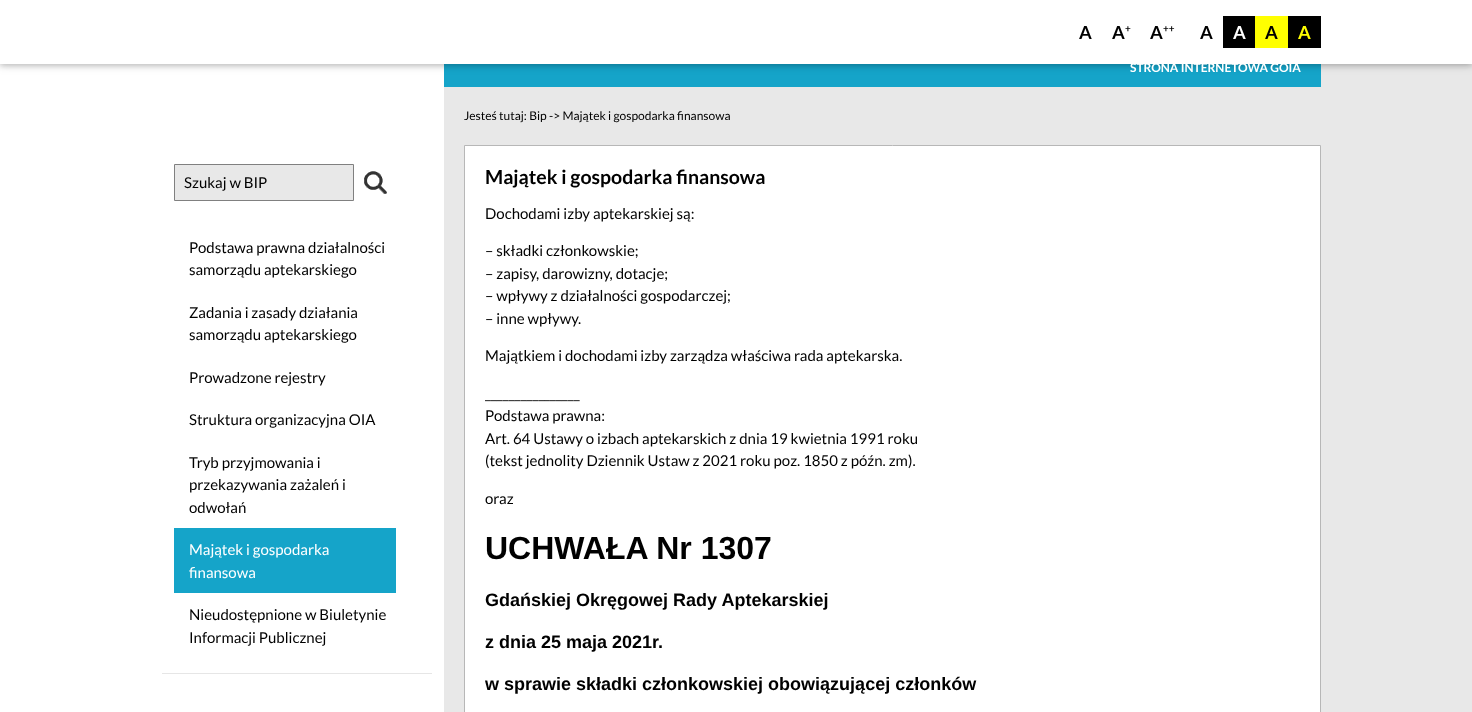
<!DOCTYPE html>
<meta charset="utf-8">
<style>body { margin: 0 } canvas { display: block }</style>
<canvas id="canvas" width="1472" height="712"></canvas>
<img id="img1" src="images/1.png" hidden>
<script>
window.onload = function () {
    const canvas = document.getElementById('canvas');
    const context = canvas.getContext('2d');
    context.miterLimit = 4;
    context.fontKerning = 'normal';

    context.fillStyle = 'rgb(232, 232, 232)';
    context.fillRect(0, 0, 1472, 712);
    context.fillStyle = 'rgb(255, 255, 255)';
    context.fillRect(0, 64, 444, 648);
    context.fillStyle = 'rgb(21, 164, 201)';
    context.fillRect(444, 64, 877, 23);
    context.fillStyle = 'rgba(0, 0, 0, 0.12)';
    context.filter = 'blur(5px)';
    context.beginPath();
    context.rect(0, 2, 1472, 64);
    context.fill();
    context.filter = 'none';
    context.fillStyle = 'rgba(0, 0, 0, 0.16)';
    context.filter = 'blur(2.5px)';
    context.beginPath();
    context.rect(0, 2, 1472, 64);
    context.fill();
    context.filter = 'none';
    context.fillStyle = 'rgb(255, 255, 255)';
    context.fillRect(0, 0, 1472, 64);
    context.fillStyle = 'rgb(0, 0, 0)';
    context.fillRect(1223, 16, 32, 32);
    context.fillStyle = 'rgb(255, 255, 0)';
    context.fillRect(1255, 16, 33, 32);
    context.fillStyle = 'rgb(0, 0, 0)';
    context.fillRect(1288, 16, 33, 32);
    context.fillStyle = 'rgb(232, 232, 232)';
    context.beginPath();
    context.rect(174.5, 164.5, 179, 36);
    context.fill();
    context.strokeStyle = 'rgb(128, 128, 128)';
    context.stroke();
    context.drawImage(document.getElementById('img1'), 364, 171, 23, 23);
    context.fillStyle = 'rgb(230, 230, 230)';
    context.fillRect(162, 673, 270, 1);
    context.fillStyle = 'rgb(21, 164, 201)';
    context.fillRect(174, 528, 222, 65);
    context.fillStyle = 'rgb(255, 255, 255)';
    context.beginPath();
    context.rect(464.5, 145.5, 856, 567);
    context.fill();
    context.strokeStyle = 'rgb(183, 183, 183)';
    context.stroke();
    context.font = 'bold 18px Lato';
    context.fillStyle = 'rgb(0, 0, 0)';
    context.fillText('A', 1079, 39);
    context.fillText('A', 1112, 39);
    context.font = 'bold 10px Lato';
    context.fillText('+', 1125, 32);
    context.font = 'bold 18px Lato';
    context.fillText('A', 1150, 39);
    context.font = 'bold 10px Lato';
    context.fillText('++', 1163, 32);
    context.font = 'bold 18px Lato';
    context.fillText('A', 1200, 39);
    context.fillStyle = 'rgb(255, 255, 255)';
    context.fillText('A', 1233, 39);
    context.fillStyle = 'rgb(0, 0, 0)';
    context.fillText('A', 1265, 39);
    context.fillStyle = 'rgb(255, 255, 0)';
    context.fillText('A', 1298, 39);
    context.font = '15px Lato';
    context.fillStyle = 'rgb(0, 0, 0)';
    context.fillText('Szukaj w BIP', 184, 188);
    context.fillText('Podstawa prawna działalności', 189, 253);
    context.fillText('samorządu aptekarskiego', 189, 275);
    context.fillText('Zadania i zasady działania', 189, 318);
    context.fillText('samorządu aptekarskiego', 189, 340);
    context.fillText('Prowadzone rejestry', 189, 383);
    context.fillText('Struktura organizacyjna OIA', 189, 425);
    context.fillText('Tryb przyjmowania i', 189, 468);
    context.fillText('przekazywania zażaleń i', 189, 490);
    context.fillText('odwołań', 189, 513);
    context.fillStyle = 'rgb(255, 255, 255)';
    context.fillText('Majątek i gospodarka', 189, 555);
    context.fillText('finansowa', 189, 578);
    context.fillStyle = 'rgb(0, 0, 0)';
    context.fillText('Nieudostępnione w Biuletynie', 189, 620);
    context.fillText('Informacji Publicznej', 189, 643);
    context.font = 'bold 12px Lato';
    context.fillStyle = 'rgb(255, 255, 255)';
    context.fillText('STRONA INTERNETOWA GOIA', 1130, 72);
    context.font = '12px Lato';
    context.fillStyle = 'rgb(0, 0, 0)';
    context.fillText('Jesteś tutaj: Bip -> Majątek i gospodarka finansowa', 464, 120);
    context.font = 'bold 19.5px Lato';
    context.fillText('Majątek i gospodarka finansowa', 485, 184);
    context.font = '15px Lato';
    context.fillText('Dochodami izby aptekarskiej są:', 485, 219);
    context.fillText('– składki członkowskie;', 485, 256);
    context.fillText('– zapisy, darowizny, dotacje;', 485, 279);
    context.fillText('– wpływy z działalności gospodarczej;', 485, 301);
    context.fillText('– inne wpływy.', 485, 324);
    context.fillText('Majątkiem i dochodami izby zarządza właściwa rada aptekarska.', 485, 361);
    context.fillText('________________', 485, 399);
    context.fillText('Podstawa prawna:', 485, 421);
    context.fillText('Art. 64 Ustawy o izbach aptekarskich z dnia 19 kwietnia 1991 roku', 485, 444);
    context.fillText('(tekst jednolity Dziennik Ustaw z 2021 roku poz. 1850 z późn. zm).', 485, 466);
    context.fillText('oraz', 485, 504);
    context.font = 'bold 32px Liberation Sans';
    context.fillText('UCHWAŁA Nr 1307', 485, 559);
    context.font = 'bold 18px Liberation Sans';
    context.fillText('Gdańskiej Okręgowej Rady Aptekarskiej', 485, 606);
    context.fillText('z dnia 25 maja 2021r.', 485, 648);
    context.fillText('w sprawie składki członkowskiej obowiązującej członków', 485, 690);
};
</script>
